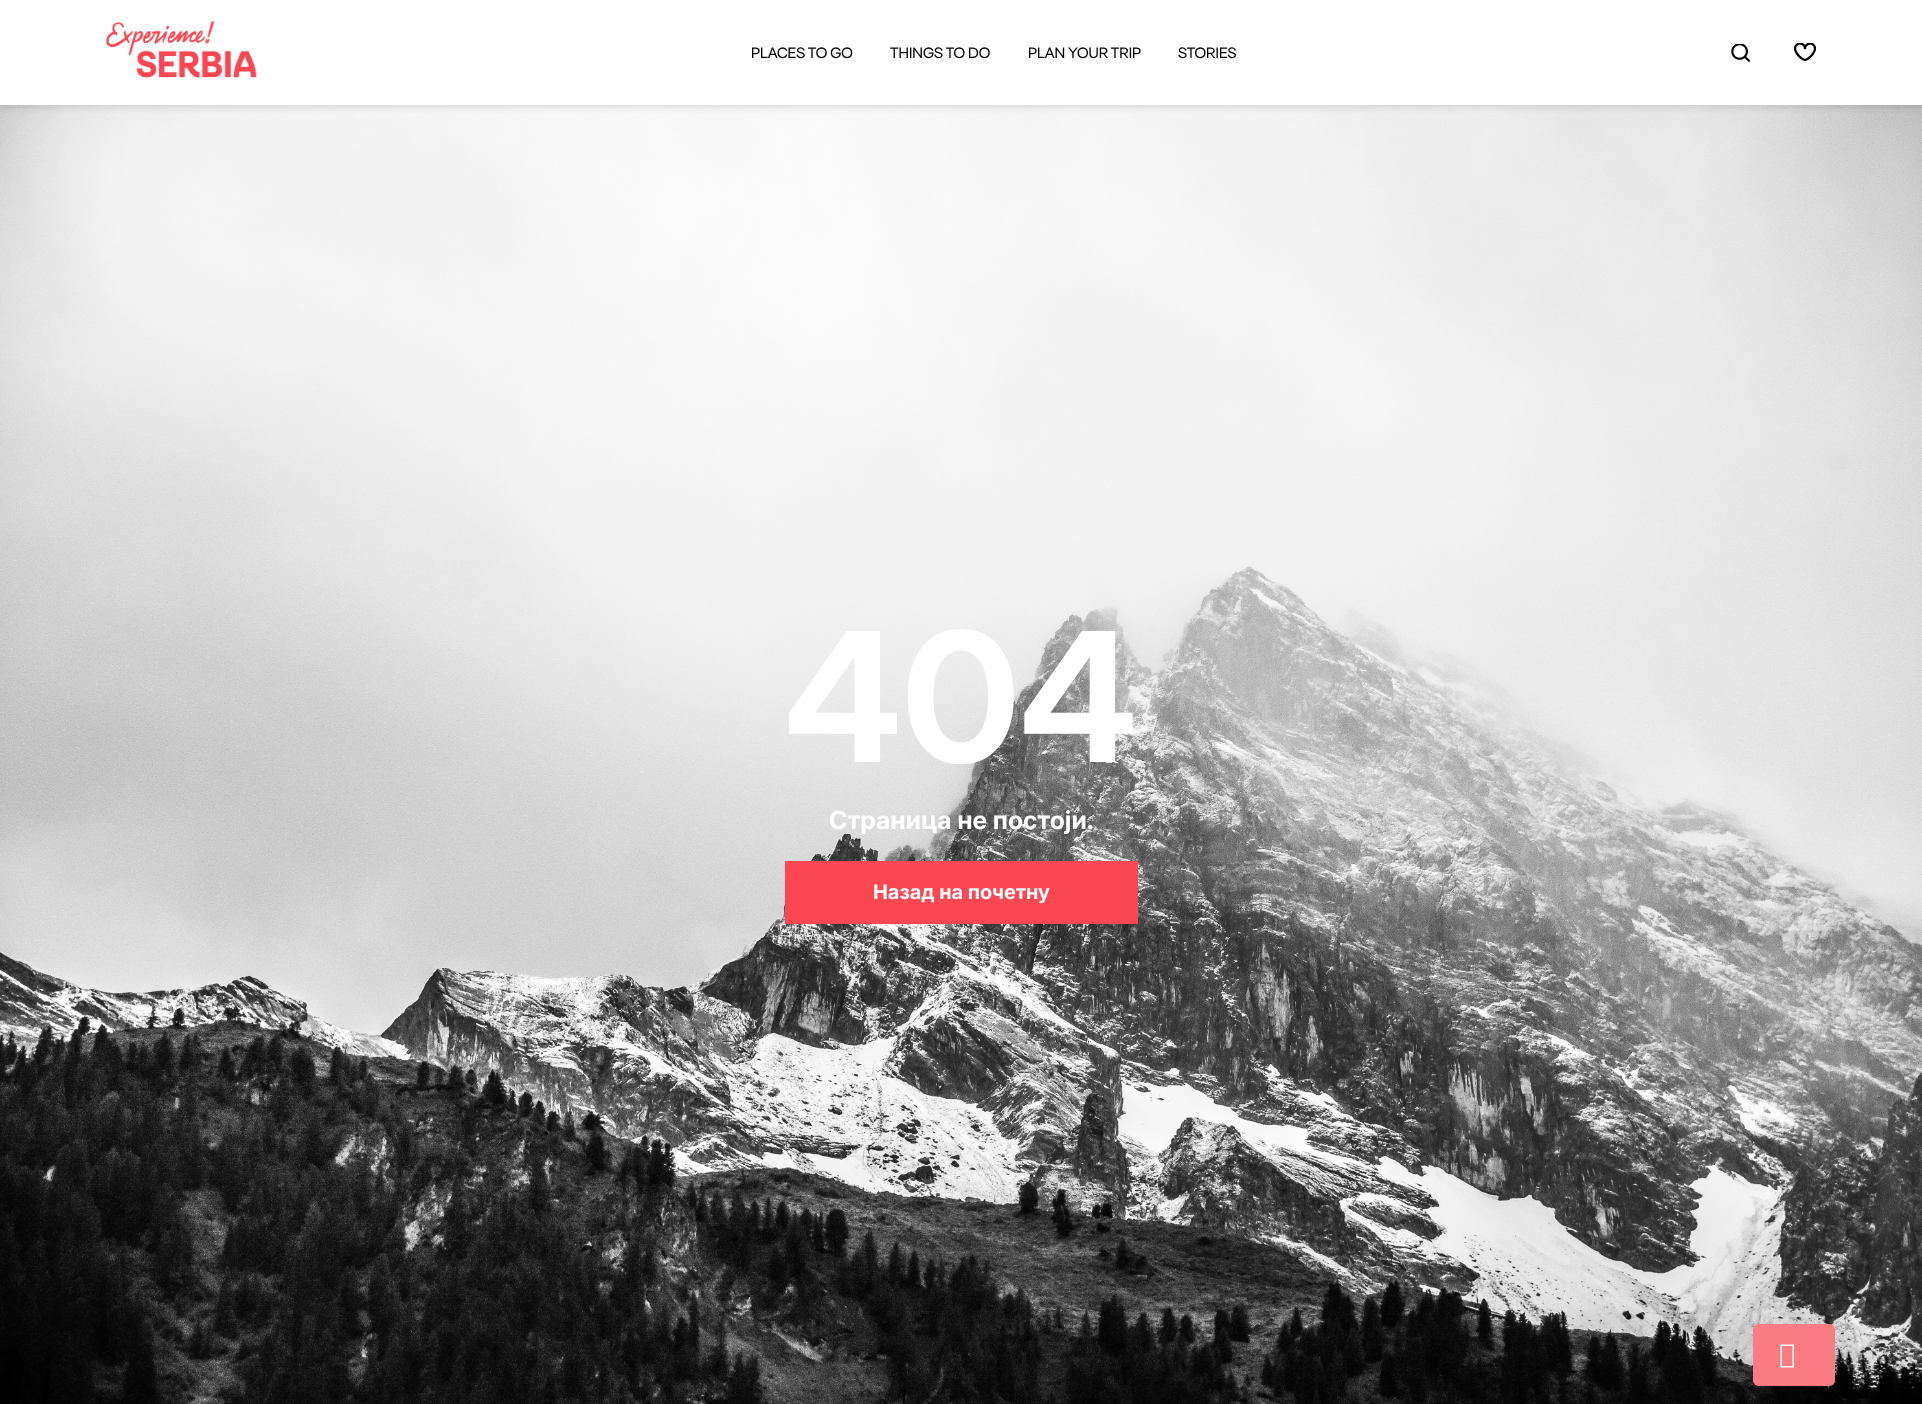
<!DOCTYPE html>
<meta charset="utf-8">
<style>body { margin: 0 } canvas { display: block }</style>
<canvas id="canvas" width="1922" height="1404"></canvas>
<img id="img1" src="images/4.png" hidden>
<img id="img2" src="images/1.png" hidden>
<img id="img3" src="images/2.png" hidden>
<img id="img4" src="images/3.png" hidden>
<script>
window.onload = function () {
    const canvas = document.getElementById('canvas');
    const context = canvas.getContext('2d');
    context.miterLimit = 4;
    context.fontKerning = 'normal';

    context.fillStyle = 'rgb(255, 255, 255)';
    context.fillRect(0, 0, 1922, 1404);
    context.drawImage(document.getElementById('img1'), 0, 105, 1922, 1299);
    context.fillStyle = 'rgba(0, 0, 0, 0.1)';
    context.filter = 'blur(3px)';
    context.beginPath();
    context.rect(0, 3, 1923, 105);
    context.fill();
    context.filter = 'none';
    context.fillStyle = 'rgb(255, 255, 255)';
    context.fillRect(0, 0, 1922, 105);
    context.drawImage(document.getElementById('img2'), 106, 21, 151, 57);
    context.drawImage(document.getElementById('img3'), 1731, 44, 19, 18);
    context.drawImage(document.getElementById('img4'), 1794, 43, 22, 18);
    context.fillStyle = 'rgb(250, 71, 82)';
    context.fillRect(785, 861, 353, 63);
    context.fillStyle = 'rgb(249, 124, 130)';
    context.beginPath();
    context.roundRect(1753, 1324, 82, 62, 6);
    context.fill();
    context.fillStyle = 'rgb(255, 255, 255)';
    context.beginPath();
    context.moveTo(1780.5, 1367.5);
    context.lineTo(1780.5, 1344.5);
    context.lineTo(1794, 1344.5);
    context.lineTo(1794, 1367.5);
    context.closePath();
    context.moveTo(1782, 1366);
    context.lineTo(1792.5, 1366);
    context.lineTo(1792.5, 1346);
    context.lineTo(1782, 1346);
    context.closePath();
    context.fill();
    context.font = '15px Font';
    context.fillStyle = 'rgb(0, 0, 0)';
    context.fillText('PLACES TO GO', 751, 58);
    context.fillText('THINGS TO DO', 890, 58);
    context.fillText('PLAN YOUR TRIP', 1028, 58);
    context.fillText('STORIES', 1178, 58);
    context.font = 'bold 180px Inter';
    context.fillStyle = 'rgb(255, 255, 255)';
    context.fillText('404', 784, 762);
    context.font = 'bold 25px "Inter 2"';
    context.fillText('Страница не постоји', 829, 829);
    context.font = 'bold 25px "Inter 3"';
    context.fillText('.', 1086, 829);
    context.font = 'bold 20px "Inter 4"';
    context.fillText('Назад на почетну', 873, 899);
};
</script>
